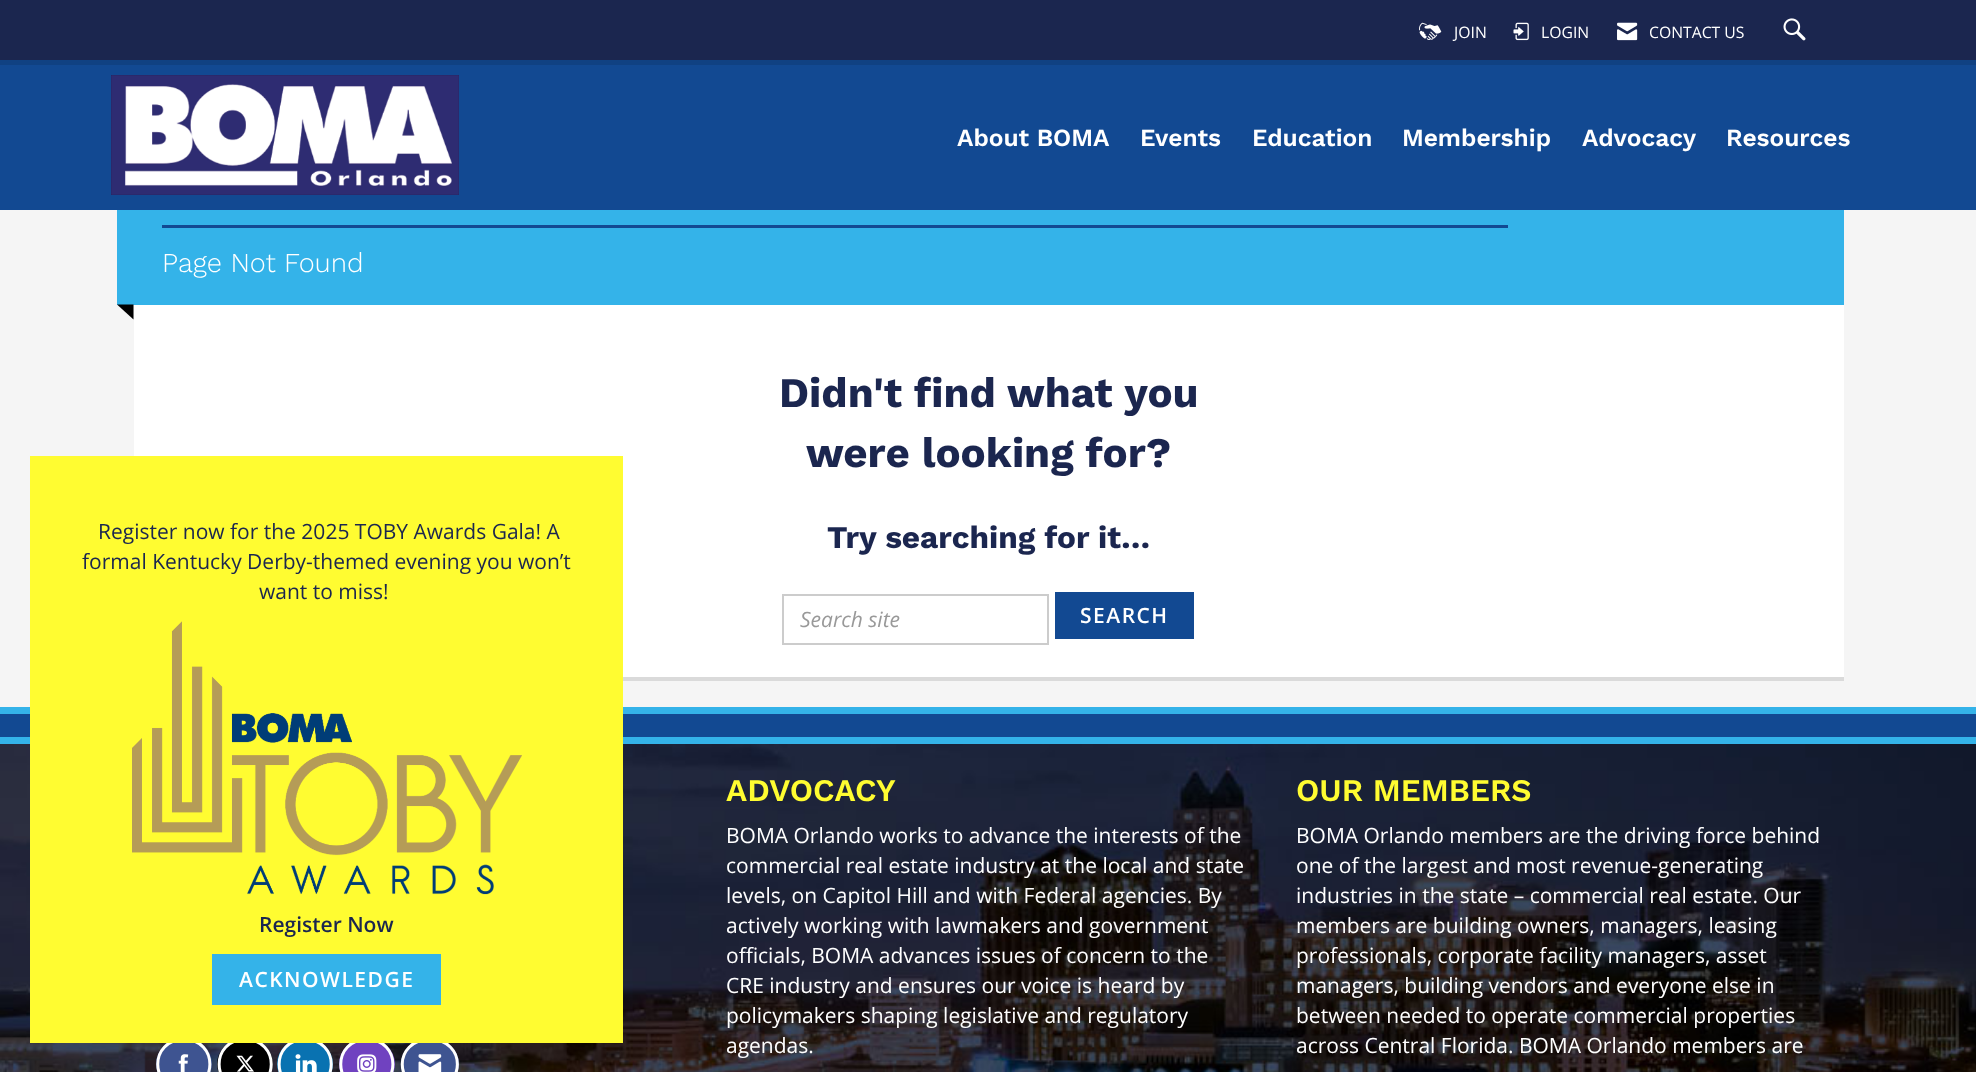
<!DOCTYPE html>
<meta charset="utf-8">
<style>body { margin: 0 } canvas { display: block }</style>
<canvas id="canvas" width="1976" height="1072"></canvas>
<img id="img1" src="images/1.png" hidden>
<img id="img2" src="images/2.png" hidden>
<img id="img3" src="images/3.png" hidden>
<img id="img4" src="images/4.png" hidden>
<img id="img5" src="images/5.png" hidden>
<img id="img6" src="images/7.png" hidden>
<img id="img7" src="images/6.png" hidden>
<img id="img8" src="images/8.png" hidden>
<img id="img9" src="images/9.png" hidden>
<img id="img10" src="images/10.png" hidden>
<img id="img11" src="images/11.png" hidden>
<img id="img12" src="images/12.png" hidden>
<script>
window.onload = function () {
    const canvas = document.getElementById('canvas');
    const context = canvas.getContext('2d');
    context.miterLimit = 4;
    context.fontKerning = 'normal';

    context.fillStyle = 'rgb(245, 245, 245)';
    context.fillRect(0, 0, 1976, 1072);
    context.fillStyle = 'rgb(18, 73, 146)';
    context.fillRect(0, 65, 1976, 145);
    context.fillStyle = 'rgb(16, 65, 130)';
    context.fillRect(0, 60, 1976, 5);
    context.fillStyle = 'rgb(27, 38, 79)';
    context.fillRect(0, 0, 1976, 60);
    context.drawImage(document.getElementById('img1'), 1419, 22, 23, 18);
    context.drawImage(document.getElementById('img2'), 1513, 22, 16, 19);
    context.drawImage(document.getElementById('img3'), 1617, 22, 21, 19);
    context.drawImage(document.getElementById('img4'), 1783, 18, 23, 23);
    context.drawImage(document.getElementById('img5'), 111, 75, 348, 120);
    context.fillStyle = 'rgb(52, 179, 233)';
    context.fillRect(117, 210, 1727, 95);
    context.fillStyle = 'rgb(18, 73, 146)';
    context.fillRect(162, 225, 1346, 3);
    context.fillStyle = 'rgb(0, 0, 0)';
    context.beginPath();
    context.moveTo(117, 304.5);
    context.lineTo(133.5, 304.5);
    context.lineTo(133.5, 319.5);
    context.closePath();
    context.fill();
    context.fillStyle = 'rgb(218, 218, 218)';
    context.beginPath();
    context.moveTo(134, 676);
    context.lineTo(134, 681);
    context.lineTo(1844, 681);
    context.lineTo(1844, 309);
    context.lineTo(1844, 676);
    context.closePath();
    context.fill();
    context.fillStyle = 'rgb(255, 255, 255)';
    context.fillRect(134, 305, 1710, 372);
    context.strokeStyle = 'rgb(204, 204, 204)';
    context.lineWidth = 2;
    context.strokeRect(783, 595, 265, 49);
    context.fillStyle = 'rgb(18, 73, 146)';
    context.fillRect(1055, 592, 139, 47);
    context.fillStyle = 'rgb(52, 179, 233)';
    context.fillRect(0, 707, 1976, 7);
    context.fillStyle = 'rgb(18, 73, 146)';
    context.fillRect(0, 714, 1976, 23);
    context.fillStyle = 'rgb(52, 179, 233)';
    context.fillRect(0, 737, 1976, 7);
    context.drawImage(document.getElementById('img6'), 0, 744, 1976, 328);
    context.fillStyle = 'rgb(62, 84, 145)';
    context.beginPath();
    context.ellipse(184, 1064, 28, 26, 0, 0, 2 * Math.PI);
    context.fill();
    context.beginPath();
    context.moveTo(184, 1039.5);
    context.bezierCurveTo(218.5, 1039.5, 218.5, 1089, 184, 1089);
    context.bezierCurveTo(149, 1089, 149, 1039.5, 184, 1039.5);
    context.closePath();
    context.strokeStyle = 'rgb(255, 255, 255)';
    context.lineWidth = 3;
    context.stroke();
    context.fillStyle = 'rgb(0, 0, 0)';
    context.beginPath();
    context.ellipse(245, 1064, 28, 26, 0, 0, 2 * Math.PI);
    context.fill();
    context.beginPath();
    context.moveTo(245, 1039.5);
    context.bezierCurveTo(280, 1039.5, 280, 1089, 245, 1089);
    context.bezierCurveTo(210.5, 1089, 210.5, 1039.5, 245, 1039.5);
    context.closePath();
    context.stroke();
    context.fillStyle = 'rgb(9, 114, 177)';
    context.beginPath();
    context.ellipse(305, 1064, 28, 26, 0, 0, 2 * Math.PI);
    context.fill();
    context.beginPath();
    context.moveTo(305, 1039.5);
    context.bezierCurveTo(340, 1039.5, 340, 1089, 305, 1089);
    context.bezierCurveTo(270.5, 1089, 270.5, 1039.5, 305, 1039.5);
    context.closePath();
    context.stroke();
    context.fillStyle = 'rgb(112, 66, 192)';
    context.beginPath();
    context.ellipse(367, 1064, 28, 26, 0, 0, 2 * Math.PI);
    context.fill();
    context.beginPath();
    context.moveTo(367, 1039.5);
    context.bezierCurveTo(401.5, 1039.5, 401.5, 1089, 367, 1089);
    context.bezierCurveTo(332, 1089, 332, 1039.5, 367, 1039.5);
    context.closePath();
    context.stroke();
    context.fillStyle = 'rgb(62, 84, 145)';
    context.beginPath();
    context.ellipse(430, 1064, 29, 26, 0, 0, 2 * Math.PI);
    context.fill();
    context.beginPath();
    context.moveTo(430, 1039.5);
    context.bezierCurveTo(466.5, 1039.5, 466.5, 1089, 430, 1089);
    context.bezierCurveTo(393, 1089, 393, 1039.5, 430, 1039.5);
    context.closePath();
    context.stroke();
    context.fillStyle = 'rgb(255, 252, 49)';
    context.fillRect(30, 456, 593, 587);
    context.drawImage(document.getElementById('img7'), 132, 621, 390, 274);
    context.fillStyle = 'rgb(52, 179, 233)';
    context.fillRect(212, 954, 229, 51);
    context.drawImage(document.getElementById('img8'), 178, 1054, 11, 18);
    context.drawImage(document.getElementById('img9'), 236, 1055, 18, 17);
    context.drawImage(document.getElementById('img10'), 295, 1054, 22, 18);
    context.drawImage(document.getElementById('img11'), 357, 1054, 20, 18);
    context.drawImage(document.getElementById('img12'), 418, 1054, 24, 18);
    context.font = '15.75px Open Sans';
    context.fillStyle = 'rgb(255, 255, 255)';
    context.fillText('JOIN', 1454, 38);
    context.fillText('LOGIN', 1541, 38);
    context.fillText('CONTACT US', 1649, 38);
    context.font = '600 24.5px Work Sans';
    context.fillText('About BOMA', 957, 146);
    context.fillText('Events', 1140, 146);
    context.fillText('Education', 1252, 146);
    context.fillText('Membership', 1402, 146);
    context.fillText('Advocacy', 1582, 146);
    context.fillText('Resources', 1726, 146);
    context.font = '300 27.25px Work Sans';
    context.fillText('Page Not Found', 162, 272);
    context.font = 'bold 42px Work Sans';
    context.fillStyle = 'rgb(27, 38, 79)';
    context.fillText('Didn\'t find what you', 779, 407);
    context.fillText('were looking for?', 806, 467);
    context.font = 'bold 31.5px Work Sans';
    context.fillText('Try searching for it…', 827, 548);
    context.font = 'italic 21px Open Sans';
    context.fillStyle = 'rgb(153, 153, 153)';
    context.fillText('Search site', 800, 627);
    context.letterSpacing = '1.5px';
    context.font = '600 21px Open Sans';
    context.fillStyle = 'rgb(255, 255, 255)';
    context.fillText('SEARCH', 1080, 623);
    context.letterSpacing = '0px';
    context.font = '21px Open Sans';
    context.fillStyle = 'rgb(27, 38, 79)';
    context.fillText('Register now for the 2025 TOBY Awards Gala! A', 98, 539);
    context.fillText('formal Kentucky Derby-themed evening you won’t', 82, 569);
    context.fillText('want to miss!', 259, 599);
    context.font = '600 21px Open Sans';
    context.fillText('Register Now', 259, 932);
    context.letterSpacing = '1.5px';
    context.fillStyle = 'rgb(255, 255, 255)';
    context.fillText('ACKNOWLEDGE', 239, 987);
    context.letterSpacing = '0px';
    context.font = '600 31.5px Work Sans';
    context.fillStyle = 'rgb(255, 252, 49)';
    context.fillText('ADVOCACY', 726, 801);
    context.font = '21px Open Sans';
    context.fillStyle = 'rgb(255, 255, 255)';
    context.fillText('BOMA Orlando works to advance the interests of the', 726, 843);
    context.fillText('commercial real estate industry at the local and state', 726, 873);
    context.fillText('levels, on Capitol Hill and with Federal agencies. By', 726, 903);
    context.fillText('actively working with lawmakers and government', 726, 933);
    context.fillText('officials, BOMA advances issues of concern to the', 726, 963);
    context.fillText('CRE industry and ensures our voice is heard by', 726, 993);
    context.fillText('policymakers shaping legislative and regulatory', 726, 1023);
    context.fillText('agendas.', 726, 1053);
    context.font = '600 31.5px Work Sans';
    context.fillStyle = 'rgb(255, 252, 49)';
    context.fillText('OUR MEMBERS', 1296, 801);
    context.font = '21px Open Sans';
    context.fillStyle = 'rgb(255, 255, 255)';
    context.fillText('BOMA Orlando members are the driving force behind', 1296, 843);
    context.fillText('one of the largest and most revenue-generating', 1296, 873);
    context.fillText('industries in the state – commercial real estate. Our', 1296, 903);
    context.fillText('members are building owners, managers, leasing', 1296, 933);
    context.fillText('professionals, corporate facility managers, asset', 1296, 963);
    context.fillText('managers, building vendors and everyone else in', 1296, 993);
    context.fillText('between needed to operate commercial properties', 1296, 1023);
    context.fillText('across Central Florida. BOMA Orlando members are', 1296, 1053);
};
</script>
